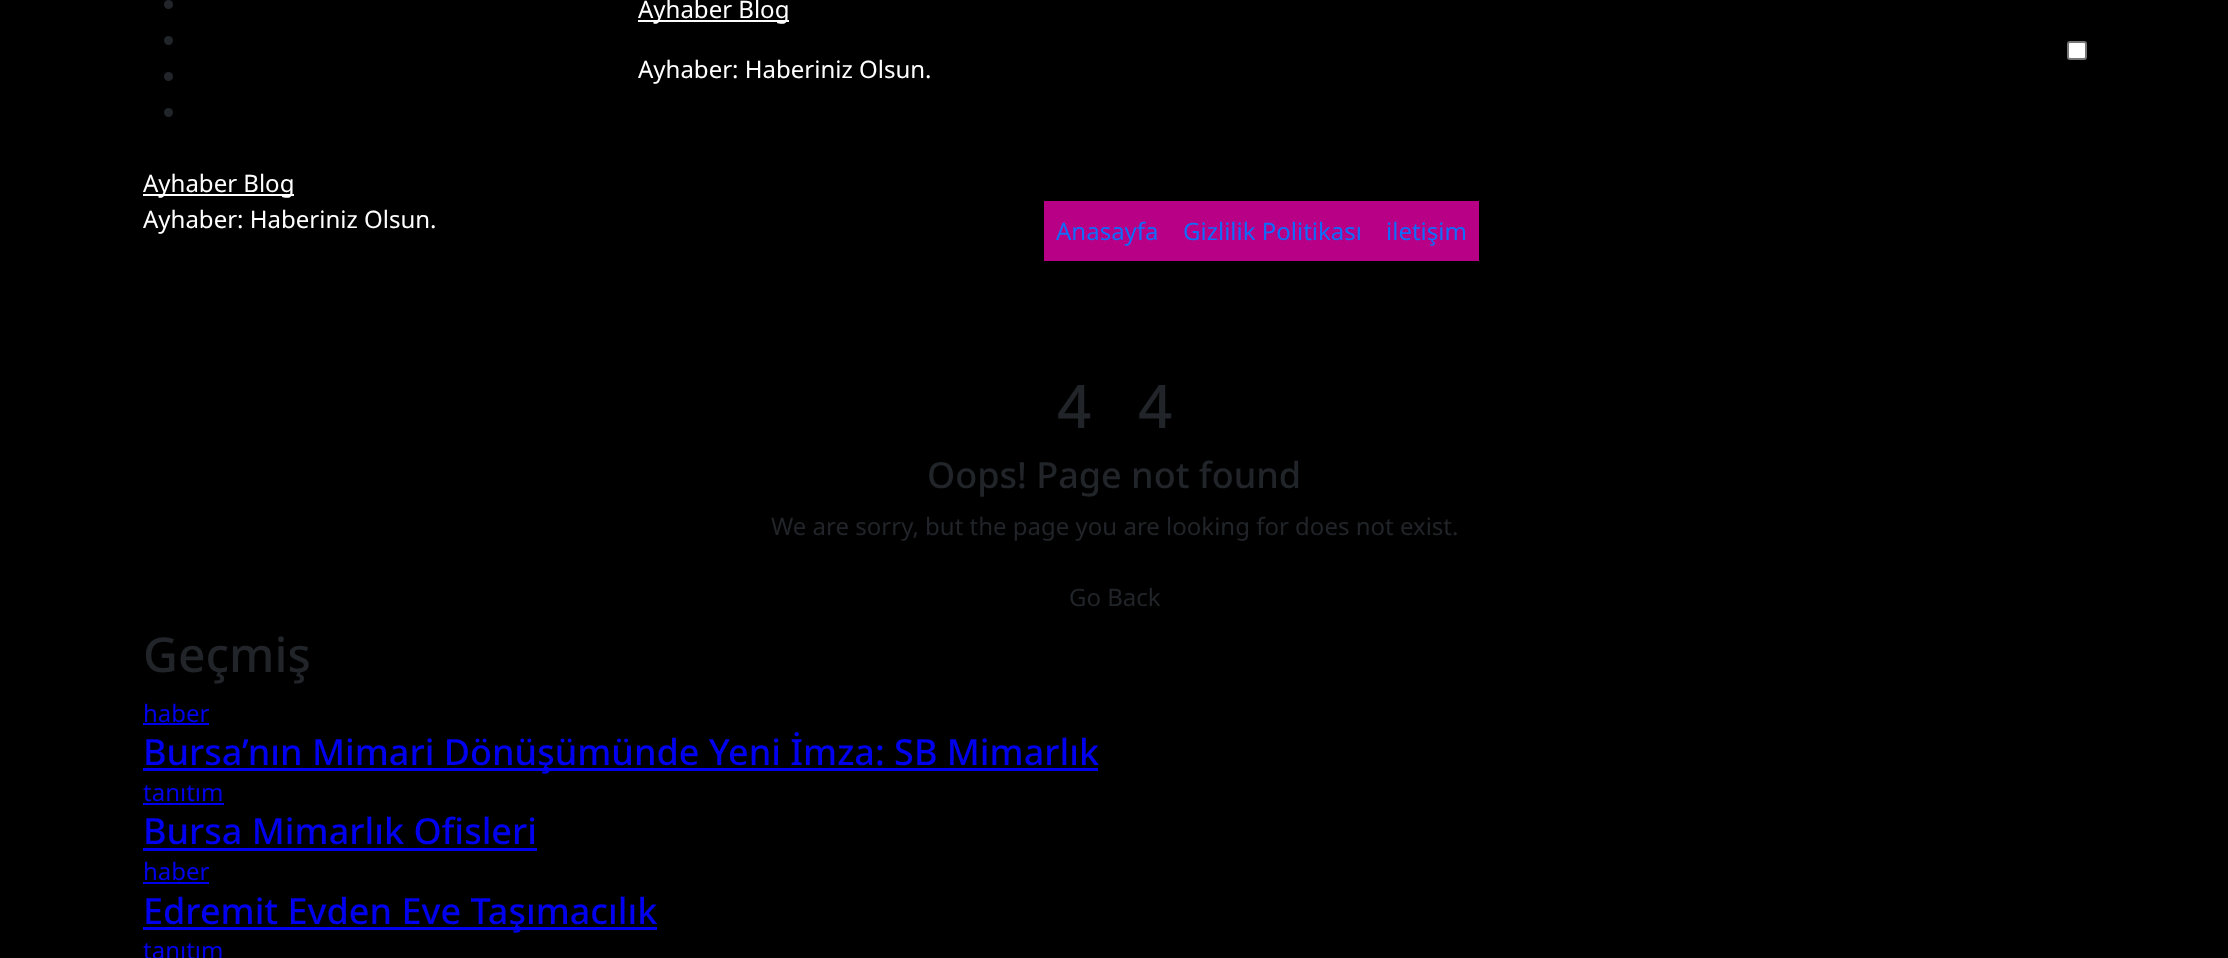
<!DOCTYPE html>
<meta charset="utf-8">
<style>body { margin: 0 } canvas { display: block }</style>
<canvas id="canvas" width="2228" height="958"></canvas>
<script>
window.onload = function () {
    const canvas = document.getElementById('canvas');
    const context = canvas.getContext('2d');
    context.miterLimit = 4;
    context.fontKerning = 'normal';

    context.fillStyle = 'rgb(0, 0, 0)';
    context.fillRect(0, 0, 2228, 958);
    context.fillStyle = 'rgb(33, 37, 41)';
    context.beginPath();
    context.arc(168.5, 4.5, 4.5, 0, 2 * Math.PI);
    context.fill();
    context.beginPath();
    context.arc(168.5, 40.5, 4.5, 0, 2 * Math.PI);
    context.fill();
    context.beginPath();
    context.arc(168.5, 76.5, 4.5, 0, 2 * Math.PI);
    context.fill();
    context.beginPath();
    context.arc(168.5, 112.5, 4.5, 0, 2 * Math.PI);
    context.fill();
    context.fillStyle = 'rgb(255, 255, 255)';
    context.fillRect(638, 20, 151, 2);
    context.beginPath();
    context.roundRect(2068, 42, 18, 17, 2);
    context.fill();
    context.strokeStyle = 'rgb(118, 118, 118)';
    context.lineWidth = 2;
    context.stroke();
    context.fillRect(143, 194, 151, 2);
    context.fillStyle = 'rgb(183, 0, 134)';
    context.fillRect(1044, 201, 435, 60);
    context.fillStyle = 'rgb(0, 0, 238)';
    context.fillRect(143, 723, 66, 2);
    context.fillRect(143, 768, 955, 3);
    context.fillRect(143, 803, 81, 2);
    context.fillRect(143, 848, 394, 3);
    context.fillRect(143, 882, 66, 2);
    context.fillRect(143, 927, 514, 3);
    context.font = '24px Noto Sans';
    context.fillStyle = 'rgb(255, 255, 255)';
    context.fillText('Ayhaber Blog', 638, 18);
    context.fillText('Ayhaber: Haberiniz Olsun.', 638, 78);
    context.fillText('Ayhaber Blog', 143, 192);
    context.fillText('Ayhaber: Haberiniz Olsun.', 143, 228);
    context.fillStyle = 'rgb(13, 110, 253)';
    context.fillText('Anasayfa', 1056, 240);
    context.fillText('Gizlilik Politikası', 1183, 240);
    context.fillText('iletişim', 1386, 240);
    context.font = '500 60px Noto Sans';
    context.fillStyle = 'rgb(33, 37, 41)';
    context.fillText('4', 1057, 428);
    context.fillText('4', 1138, 428);
    context.font = '500 36px Noto Sans';
    context.fillText('Oops! Page not found', 927, 488);
    context.font = '24px Noto Sans';
    context.fillText('We are sorry, but the page you are looking for does not exist.', 771, 535);
    context.fillText('Go Back', 1069, 606);
    context.font = '500 48px Noto Sans';
    context.fillText('Geçmiş', 143, 672);
    context.font = '24px Noto Sans';
    context.fillStyle = 'rgb(0, 0, 238)';
    context.fillText('haber', 143, 722);
    context.font = '500 36px Noto Sans';
    context.fillText('Bursa’nın Mimari Dönüşümünde Yeni İmza: SB Mimarlık', 143, 765);
    context.font = '24px Noto Sans';
    context.fillText('tanıtım', 143, 801);
    context.font = '500 36px Noto Sans';
    context.fillText('Bursa Mimarlık Ofisleri', 143, 844);
    context.font = '24px Noto Sans';
    context.fillText('haber', 143, 880);
    context.font = '500 36px Noto Sans';
    context.fillText('Edremit Evden Eve Taşımacılık', 143, 924);
    context.font = '24px Noto Sans';
    context.fillText('tanıtım', 143, 959);
};
</script>
